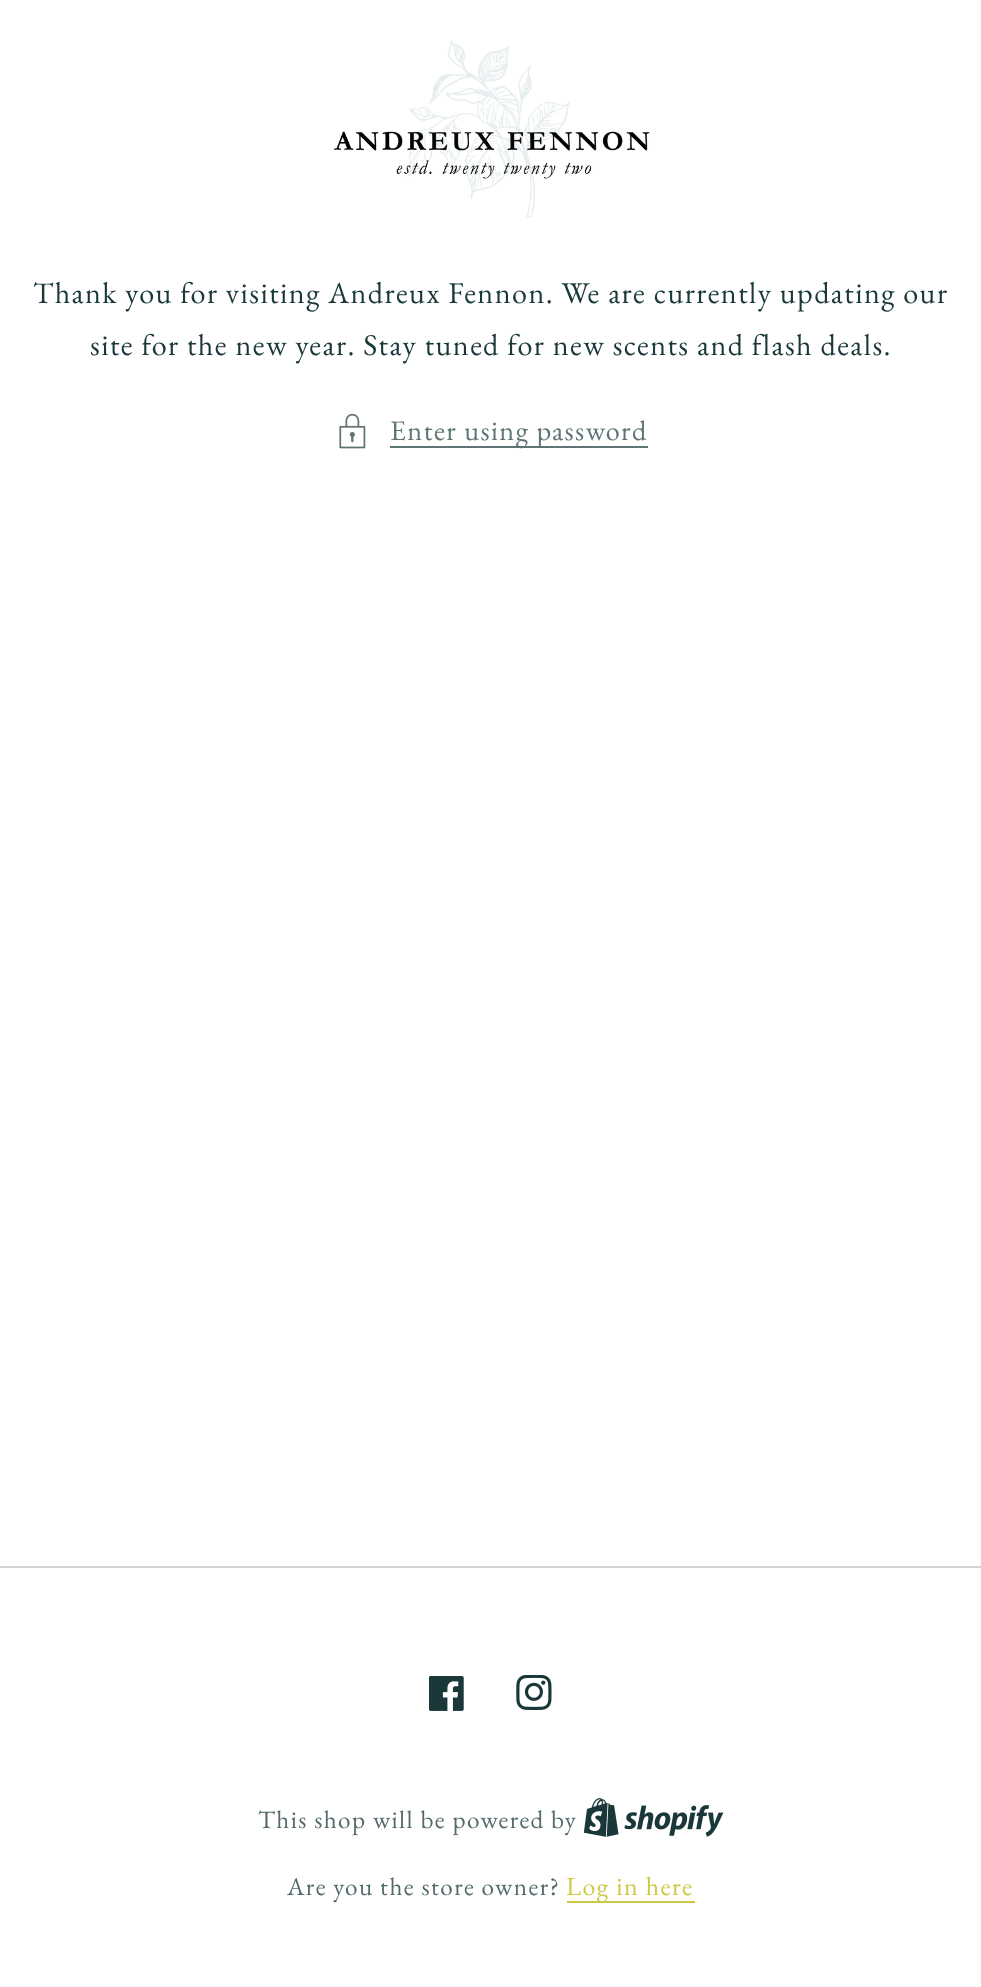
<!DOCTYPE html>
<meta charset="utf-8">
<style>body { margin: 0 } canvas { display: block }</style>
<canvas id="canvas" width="981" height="1987"></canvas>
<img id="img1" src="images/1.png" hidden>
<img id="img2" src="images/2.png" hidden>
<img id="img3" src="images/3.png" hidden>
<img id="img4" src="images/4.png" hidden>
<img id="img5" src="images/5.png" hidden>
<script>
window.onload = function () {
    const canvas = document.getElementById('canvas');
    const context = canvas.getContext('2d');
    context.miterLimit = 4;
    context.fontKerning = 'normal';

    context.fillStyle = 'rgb(255, 255, 255)';
    context.fillRect(0, 0, 981, 1987);
    context.drawImage(document.getElementById('img1'), 334, 40, 316, 178);
    context.drawImage(document.getElementById('img2'), 339, 413, 27, 36);
    context.fillStyle = 'rgb(95, 116, 117)';
    context.fillRect(390, 446, 258, 2);
    context.fillStyle = 'rgb(209, 215, 216)';
    context.fillRect(0, 1566, 981, 2);
    context.drawImage(document.getElementById('img3'), 429, 1676, 35, 35);
    context.drawImage(document.getElementById('img4'), 516, 1675, 36, 35);
    context.drawImage(document.getElementById('img5'), 583, 1798, 141, 39);
    context.fillStyle = 'rgb(206, 201, 66)';
    context.fillRect(567, 1901, 128, 2);
    context.letterSpacing = '1.4px';
    context.font = '30.2px EB Garamond';
    context.fillStyle = 'rgb(26, 56, 58)';
    context.fillText('Thank you for visiting Andreux Fennon. We are currently updating our', 33, 303);
    context.fillText('site for the new year. Stay tuned for new scents and flash deals.', 90, 355);
    context.font = '28.25px EB Garamond';
    context.fillStyle = 'rgb(94, 115, 116)';
    context.fillText('Enter using password', 390, 440);
    context.font = '25.2px EB Garamond';
    context.fillStyle = 'rgb(83, 106, 107)';
    context.fillText('This shop will be powered by', 258, 1828);
    context.fillText('Are you the store owner?', 287, 1895);
    context.font = '26px EB Garamond';
    context.fillStyle = 'rgb(206, 200, 66)';
    context.fillText('Log in here', 566, 1895);
};
</script>
